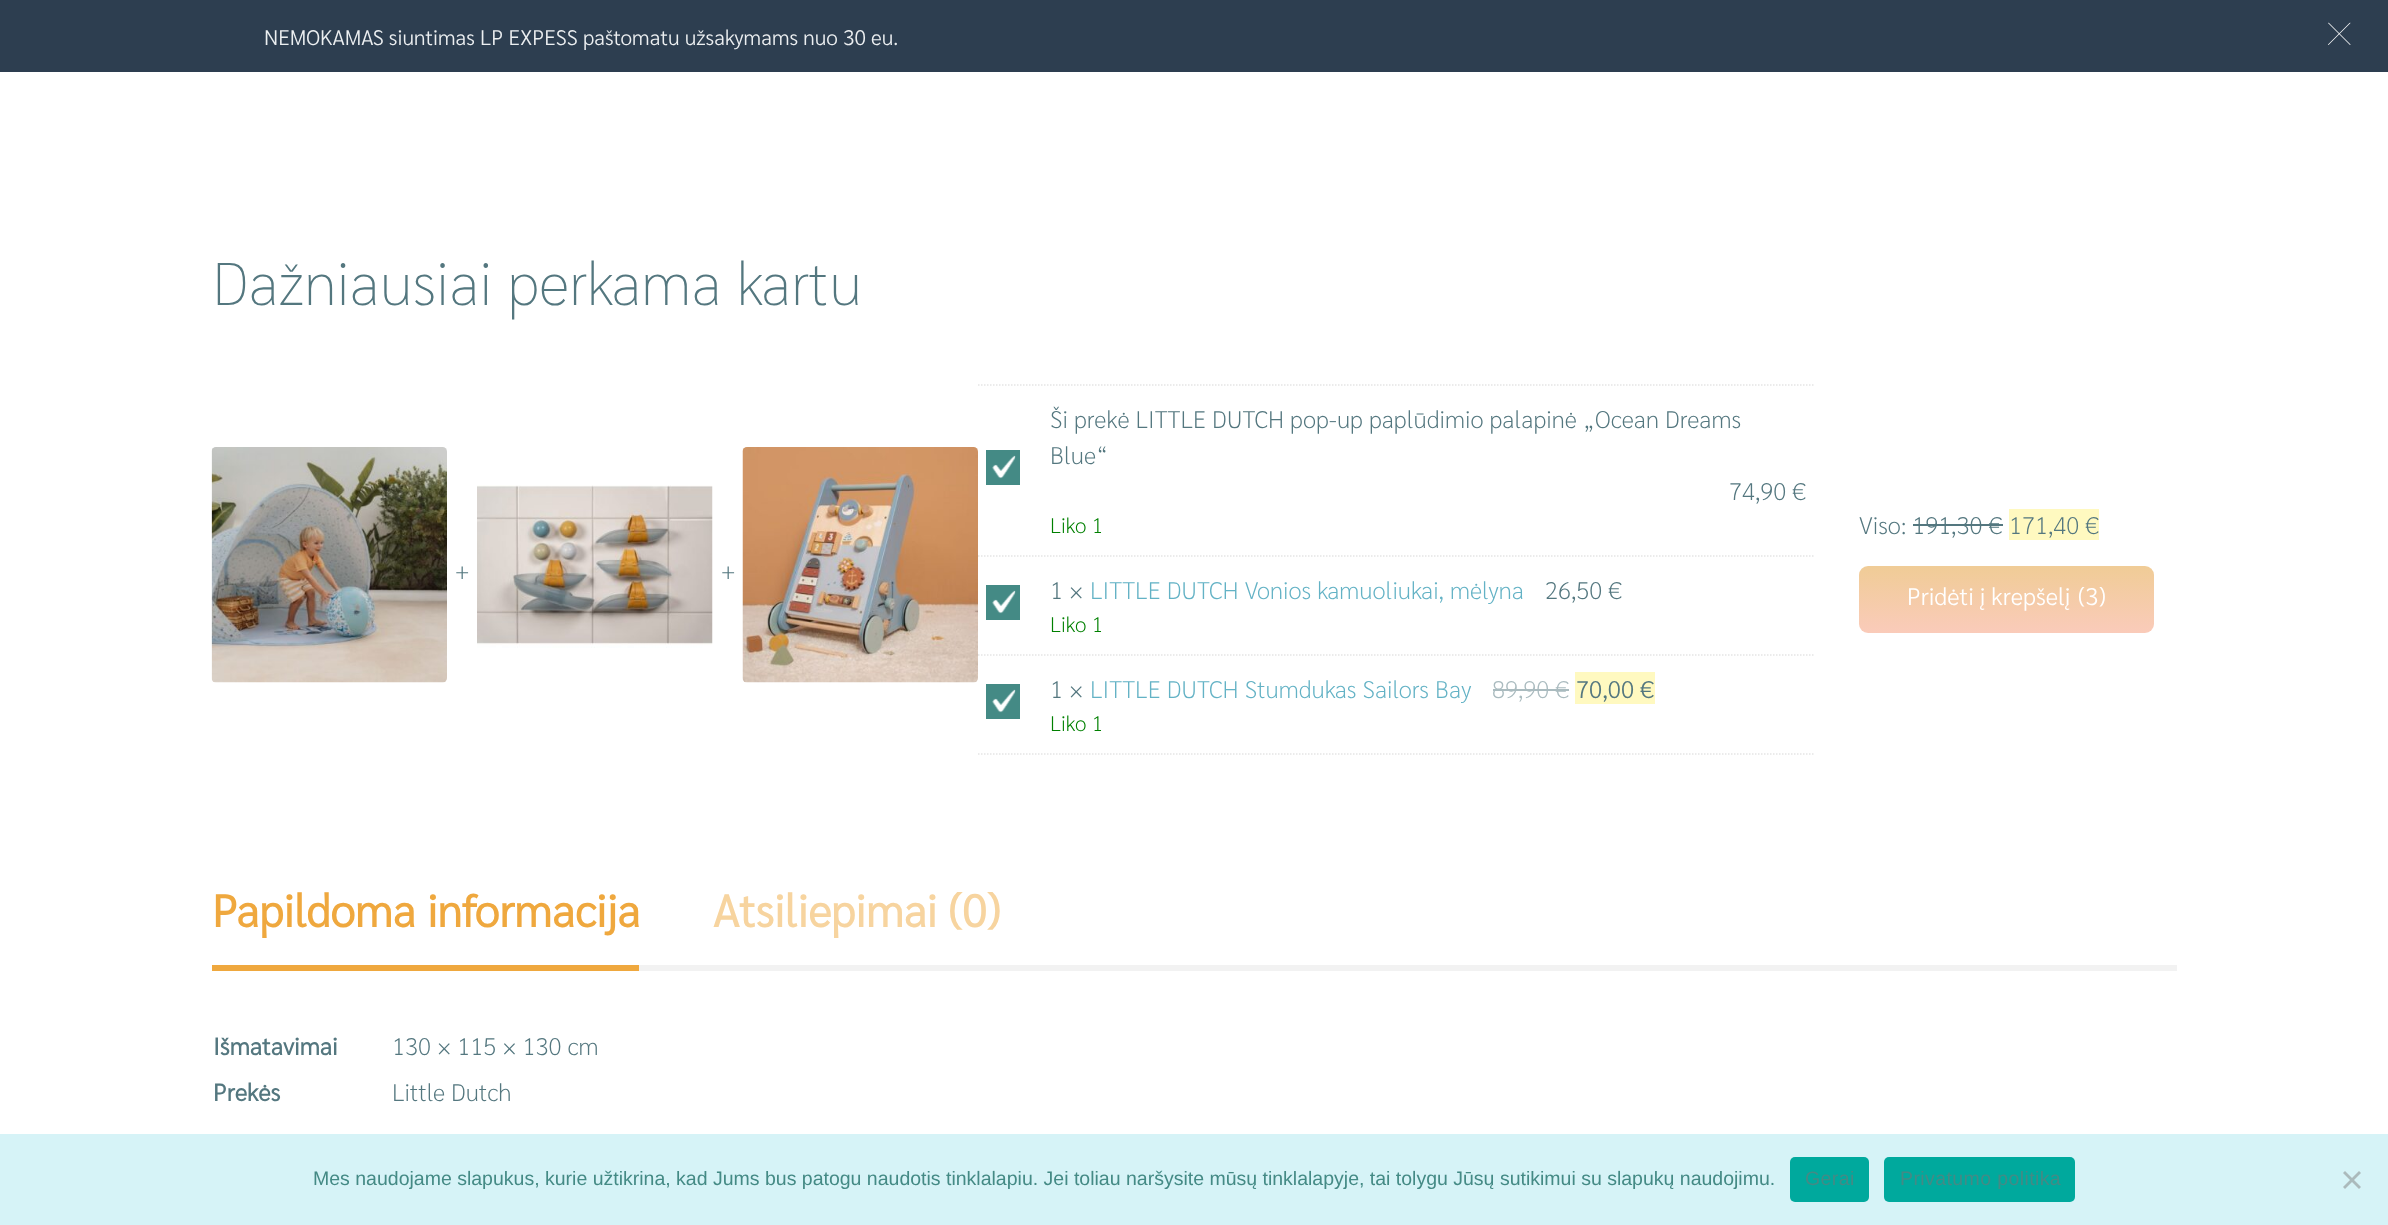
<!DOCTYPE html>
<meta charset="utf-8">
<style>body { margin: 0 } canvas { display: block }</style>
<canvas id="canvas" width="2388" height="1225"></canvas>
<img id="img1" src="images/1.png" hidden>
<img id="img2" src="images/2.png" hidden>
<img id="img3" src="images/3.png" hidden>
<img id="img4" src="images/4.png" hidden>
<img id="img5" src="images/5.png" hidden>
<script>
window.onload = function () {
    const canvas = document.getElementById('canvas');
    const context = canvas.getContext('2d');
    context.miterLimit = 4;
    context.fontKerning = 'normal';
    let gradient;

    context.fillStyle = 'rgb(255, 255, 255)';
    context.fillRect(0, 0, 2388, 1225);
    context.fillStyle = 'rgb(45, 62, 80)';
    context.fillRect(0, 0, 2388, 72);
    context.drawImage(document.getElementById('img1'), 2328, 22, 23, 23);
    context.drawImage(document.getElementById('img2'), 211, 447, 236, 236);
    context.drawImage(document.getElementById('img3'), 477, 485, 236, 163);
    context.drawImage(document.getElementById('img4'), 742, 447, 236, 236);
    context.beginPath();
    context.moveTo(978, 385);
    context.lineTo(1813.5, 385);
    context.strokeStyle = 'rgb(229, 229, 229)';
    context.lineWidth = 1.5;
    context.setLineDash([1.5, 1.5]);
    context.stroke();
    context.beginPath();
    context.moveTo(978, 556);
    context.lineTo(1813.5, 556);
    context.stroke();
    context.fillStyle = 'rgb(68, 138, 133)';
    context.fillRect(986, 450, 34, 35);
    context.drawImage(document.getElementById('img5'), 992, 455, 24, 24);
    context.beginPath();
    context.moveTo(978, 655);
    context.lineTo(1813.5, 655);
    context.stroke();
    context.fillRect(986, 585, 34, 35);
    context.drawImage(document.getElementById('img5'), 992, 590, 24, 24);
    context.beginPath();
    context.moveTo(978, 754);
    context.lineTo(1813.5, 754);
    context.stroke();
    context.fillRect(986, 684, 34, 35);
    context.drawImage(document.getElementById('img5'), 992, 689, 24, 24);
    context.fillStyle = 'rgb(170, 187, 191)';
    context.fillRect(1493, 689, 76, 2);
    context.fillStyle = 'rgb(255, 249, 192)';
    context.fillRect(1575, 672, 80, 32);
    context.fillRect(2009, 509, 90, 31);
    context.fillStyle = 'rgb(84, 119, 127)';
    context.fillRect(1913, 524, 90, 2);
    gradient = context.createLinearGradient(2006, 566, 2006, 633);
    gradient.addColorStop(0, 'rgb(240, 204, 150)');
    gradient.addColorStop(1, 'rgb(250, 203, 186)');
    context.fillStyle = gradient;
    context.beginPath();
    context.roundRect(1859, 566, 295, 67, 9);
    context.fill();
    context.fillStyle = 'rgb(242, 242, 242)';
    context.fillRect(639, 965, 1538, 6);
    context.fillStyle = 'rgb(239, 168, 62)';
    context.fillRect(212, 965, 427, 6);
    context.fillStyle = 'rgb(214, 243, 247)';
    context.fillRect(0, 1134, 2388, 91);
    context.fillStyle = 'rgb(0, 169, 157)';
    context.beginPath();
    context.roundRect(1790, 1157, 79, 45, 5);
    context.fill();
    context.beginPath();
    context.roundRect(1884, 1157, 191, 45, 5);
    context.fill();
    context.fillStyle = 'rgb(171, 186, 188)';
    context.beginPath();
    context.moveTo(2359, 1171);
    context.lineTo(2361, 1173);
    context.lineTo(2345, 1189);
    context.lineTo(2343, 1187);
    context.closePath();
    context.fill();
    context.beginPath();
    context.moveTo(2343, 1173);
    context.lineTo(2345, 1171);
    context.lineTo(2361, 1187);
    context.lineTo(2359, 1189);
    context.closePath();
    context.fill();
    context.font = '300 21px Sarabun';
    context.fillStyle = 'rgb(236, 239, 241)';
    context.fillText('NEMOKAMAS siuntimas LP EXPESS paštomatu užsakymams nuo 30 eu.', 264, 45);
    context.font = '100 60px Sarabun';
    context.fillStyle = 'rgb(84, 119, 127)';
    context.fillText('Dažniausiai perkama kartu', 212, 305);
    context.font = '200 24px Sarabun';
    context.fillText('+', 455, 579);
    context.fillText('+', 721, 579);
    context.fillText('Ši prekė LITTLE DUTCH pop-up paplūdimio palapinė „Ocean Dreams', 1050, 428);
    context.fillText('Blue“', 1050, 464);
    context.fillText('74,90 €', 1729, 500);
    context.font = '200 21px Sarabun';
    context.fillStyle = 'rgb(0, 128, 0)';
    context.fillText('Liko 1', 1050, 533);
    context.font = '200 24px Sarabun';
    context.fillStyle = 'rgb(84, 119, 127)';
    context.fillText('1 ×', 1050, 599);
    context.fillStyle = 'rgb(99, 178, 197)';
    context.fillText('LITTLE DUTCH Vonios kamuoliukai, mėlyna', 1090, 599);
    context.fillStyle = 'rgb(84, 119, 127)';
    context.fillText('26,50 €', 1545, 599);
    context.font = '200 21px Sarabun';
    context.fillStyle = 'rgb(0, 128, 0)';
    context.fillText('Liko 1', 1050, 632);
    context.font = '200 24px Sarabun';
    context.fillStyle = 'rgb(84, 119, 127)';
    context.fillText('1 ×', 1050, 698);
    context.fillStyle = 'rgb(99, 178, 197)';
    context.fillText('LITTLE DUTCH Stumdukas Sailors Bay', 1090, 698);
    context.fillStyle = 'rgb(170, 187, 191)';
    context.fillText('89,90 €', 1492, 698);
    context.font = '300 24px Sarabun';
    context.fillStyle = 'rgb(84, 119, 127)';
    context.fillText('70,00 €', 1576, 698);
    context.font = '200 21px Sarabun';
    context.fillStyle = 'rgb(0, 128, 0)';
    context.fillText('Liko 1', 1050, 731);
    context.font = '200 24px Sarabun';
    context.fillStyle = 'rgb(84, 119, 127)';
    context.fillText('Viso: 191,30 €', 1859, 534);
    context.fillText('171,40 €', 2009, 534);
    context.font = '300 24px Sarabun';
    context.fillStyle = 'rgb(255, 255, 255)';
    context.fillText('Pridėti į krepšelį', 1907, 605);
    context.fillText('(3)', 2078, 605);
    context.font = 'bold 45px Sarabun';
    context.fillStyle = 'rgb(239, 168, 62)';
    context.fillText('Papildoma informacija', 212, 927);
    context.fillStyle = 'rgb(247, 212, 159)';
    context.fillText('Atsiliepimai (0)', 713, 927);
    context.font = 'bold 24px Sarabun';
    context.fillStyle = 'rgb(84, 119, 127)';
    context.fillText('Išmatavimai', 213, 1055);
    context.font = '200 24px Sarabun';
    context.fillText('130 × 115 × 130 cm', 392, 1055);
    context.font = 'bold 24px Sarabun';
    context.fillText('Prekės', 213, 1101);
    context.font = '200 24px Sarabun';
    context.fillText('Little Dutch', 392, 1101);
    context.font = '19.5px Liberation Sans';
    context.fillStyle = 'rgb(68, 138, 133)';
    context.fillText('Mes naudojame slapukus, kurie užtikrina, kad Jums bus patogu naudotis tinklalapiu. Jei toliau naršysite mūsų tinklalapyje, tai tolygu Jūsų sutikimui su slapukų naudojimu.', 313, 1185);
    context.letterSpacing = '0.4px';
    context.fillText('Gerai', 1805, 1185);
    context.fillText('Privatumo politika', 1900, 1185);
};
</script>
